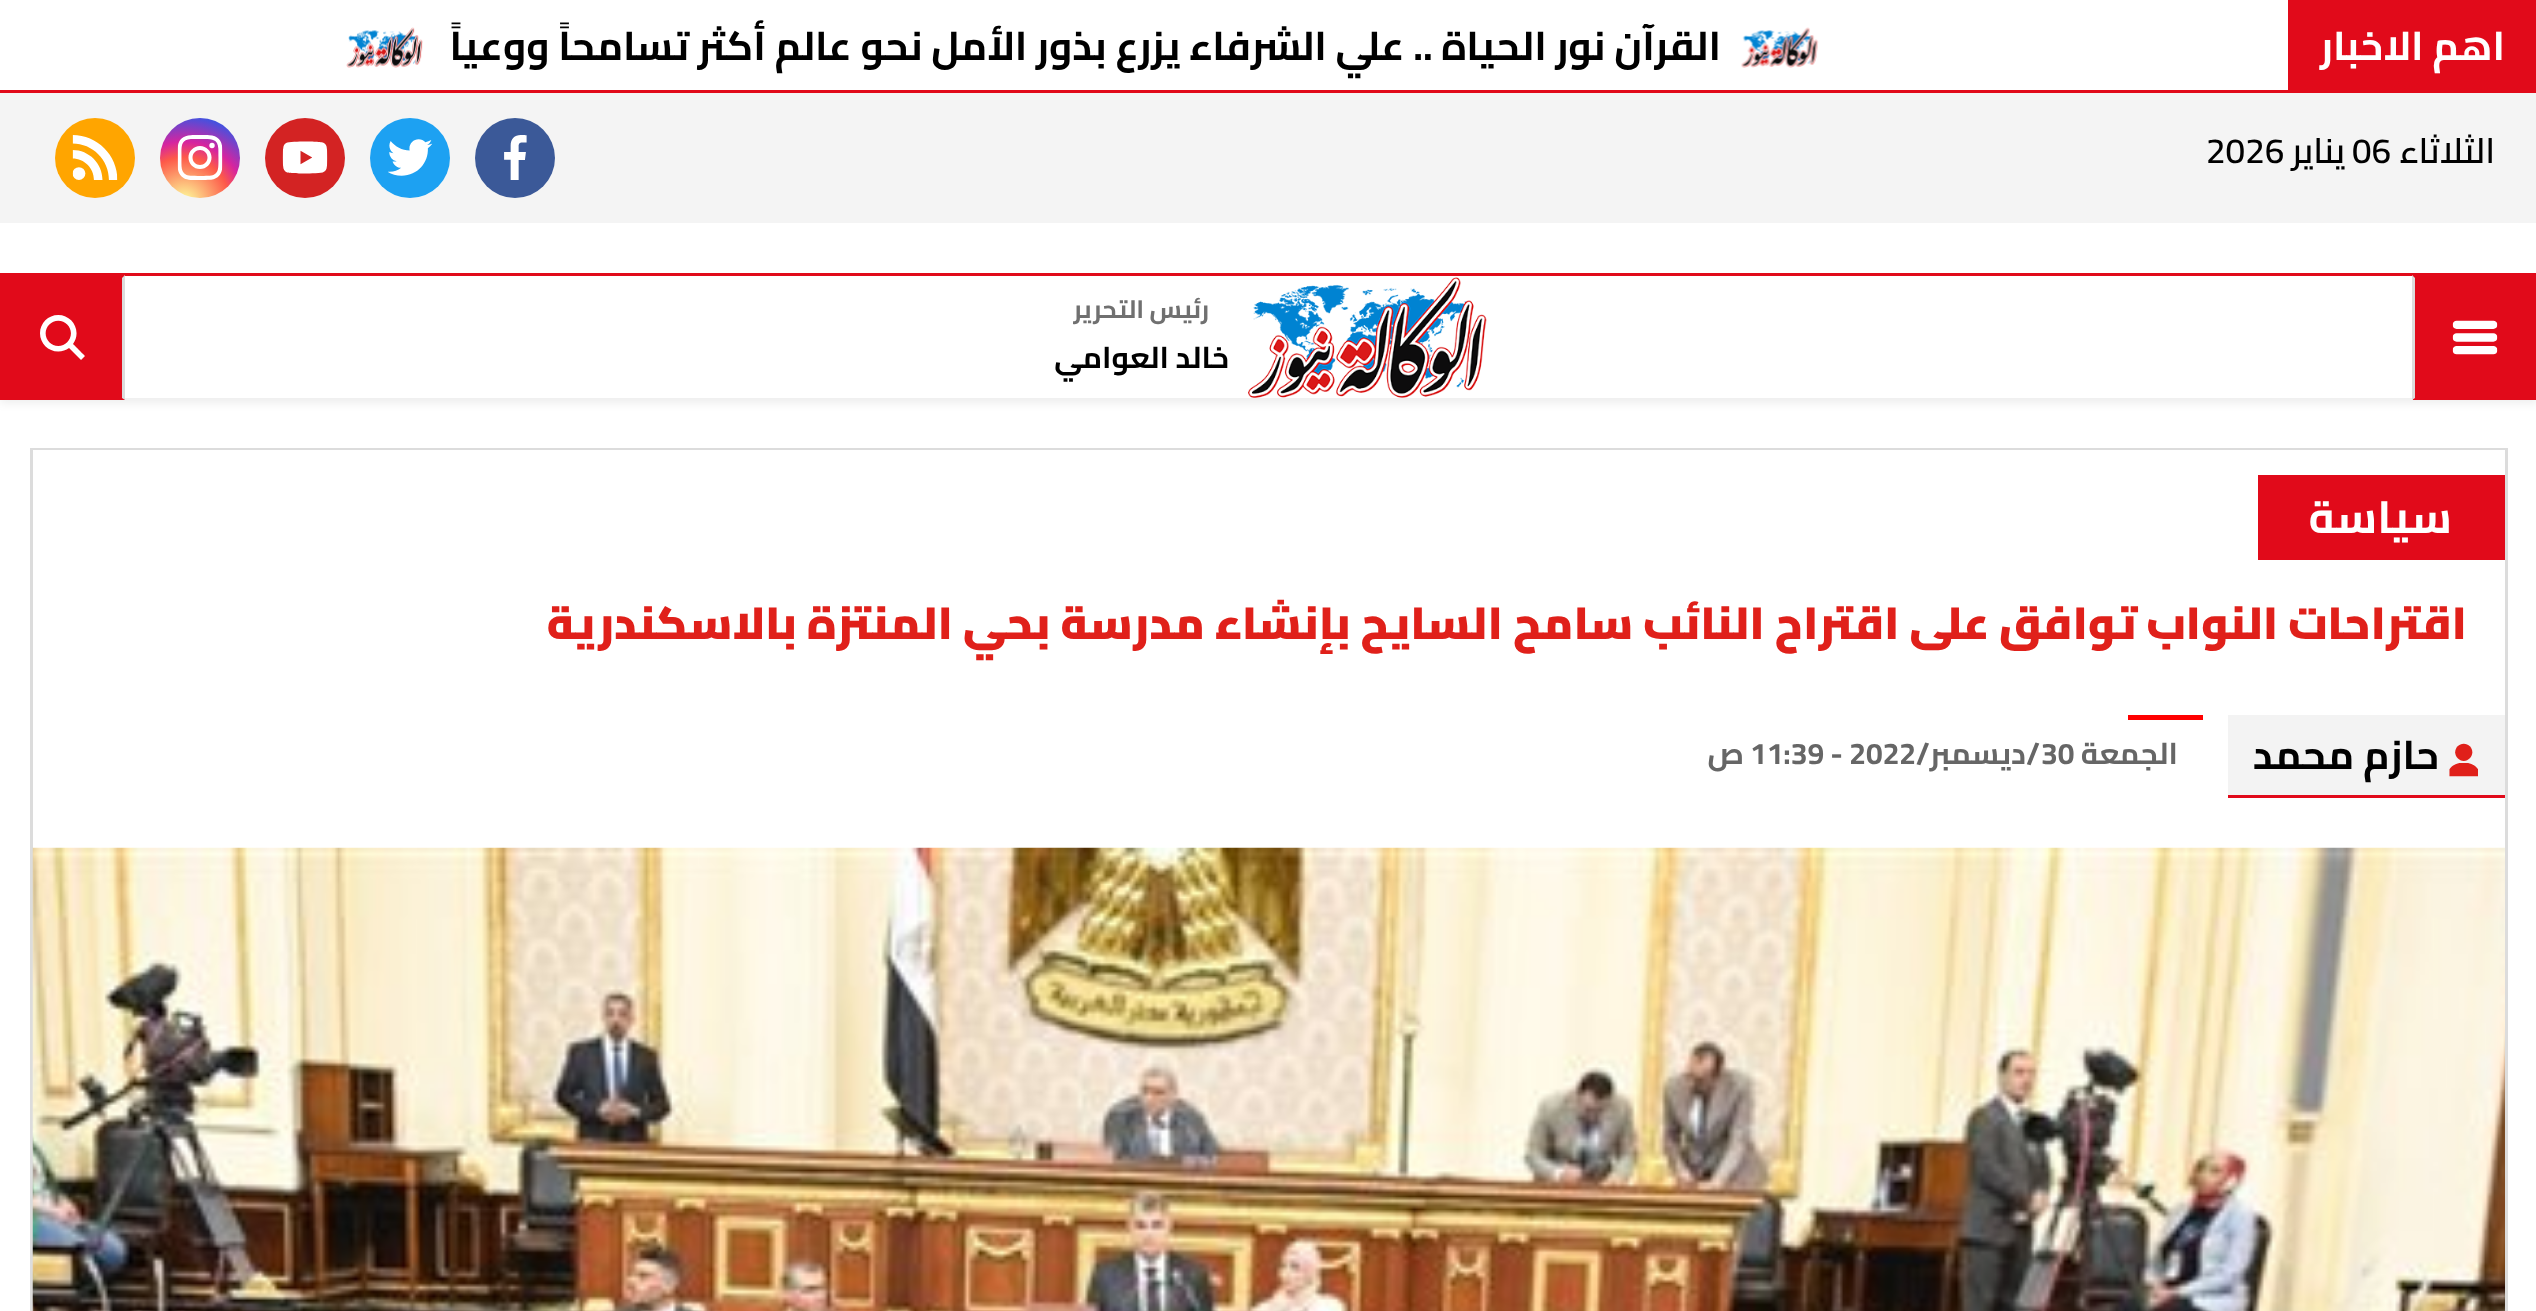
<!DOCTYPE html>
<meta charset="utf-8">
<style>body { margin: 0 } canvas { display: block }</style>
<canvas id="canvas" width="2536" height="1311"></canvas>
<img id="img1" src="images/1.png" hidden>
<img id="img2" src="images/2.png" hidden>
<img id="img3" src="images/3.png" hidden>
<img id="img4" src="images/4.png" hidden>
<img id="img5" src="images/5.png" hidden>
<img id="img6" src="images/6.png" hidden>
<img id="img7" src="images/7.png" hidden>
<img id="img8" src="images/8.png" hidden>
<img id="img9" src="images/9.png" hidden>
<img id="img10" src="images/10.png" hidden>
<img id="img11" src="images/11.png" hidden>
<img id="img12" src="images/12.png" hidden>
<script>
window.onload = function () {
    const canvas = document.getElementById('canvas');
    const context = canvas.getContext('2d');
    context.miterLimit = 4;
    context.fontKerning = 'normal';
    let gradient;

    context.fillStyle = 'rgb(255, 255, 255)';
    context.fillRect(0, 0, 2536, 1311);
    context.fillStyle = 'rgba(0, 0, 0, 0.07)';
    context.filter = 'blur(5px)';
    context.beginPath();
    context.rect(0, 98, 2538, 305);
    context.fill();
    context.filter = 'none';
    context.fillStyle = 'rgb(225, 10, 26)';
    context.fillRect(0, 90, 2536, 3);
    context.fillRect(2288, 0, 248, 90);
    context.drawImage(document.getElementById('img1'), 1741, 27, 78, 41);
    context.drawImage(document.getElementById('img2'), 346, 27, 77, 41);
    context.fillStyle = 'rgb(255, 255, 255)';
    context.fillRect(0, 223, 2536, 50);
    context.fillStyle = 'rgb(244, 244, 244)';
    context.fillRect(0, 93, 2536, 130);
    context.fillStyle = 'rgb(59, 89, 152)';
    context.beginPath();
    context.arc(515, 158, 40, 0, 2 * Math.PI);
    context.fill();
    context.drawImage(document.getElementById('img3'), 504, 135, 23, 45);
    context.fillStyle = 'rgb(29, 161, 242)';
    context.beginPath();
    context.arc(410, 158, 40, 0, 2 * Math.PI);
    context.fill();
    context.drawImage(document.getElementById('img4'), 388, 139, 45, 37);
    context.fillStyle = 'rgb(211, 35, 35)';
    context.beginPath();
    context.arc(305, 158, 40, 0, 2 * Math.PI);
    context.fill();
    context.drawImage(document.getElementById('img5'), 282, 141, 46, 33);
    gradient = context.createRadialGradient(184, 203, 0, 184, 203, 102);
    gradient.addColorStop(0, 'rgb(253, 244, 151)');
    gradient.addColorStop(0.05, 'rgb(253, 244, 151)');
    gradient.addColorStop(0.45, 'rgb(253, 89, 73)');
    gradient.addColorStop(0.6, 'rgb(214, 36, 159)');
    gradient.addColorStop(0.9, 'rgb(40, 90, 235)');
    context.fillStyle = gradient;
    context.beginPath();
    context.arc(200, 158, 40, 0, 2 * Math.PI);
    context.fill();
    context.drawImage(document.getElementById('img6'), 177, 135, 46, 45);
    context.fillStyle = 'rgb(255, 165, 0)';
    context.beginPath();
    context.arc(95, 158, 40, 0, 2 * Math.PI);
    context.fill();
    context.drawImage(document.getElementById('img7'), 72, 135, 46, 45);
    context.fillStyle = 'rgb(255, 255, 255)';
    context.fillRect(125, 276, 2287, 122);
    context.fillStyle = 'rgb(225, 10, 26)';
    context.fillRect(0, 273, 2536, 3);
    context.fillRect(2413, 276, 123, 124);
    context.fillStyle = 'rgb(220, 220, 220)';
    context.beginPath();
    context.moveTo(2412, 400);
    context.lineTo(2412, 275);
    context.lineTo(2415, 278);
    context.lineTo(2415, 398);
    context.closePath();
    context.fill();
    context.drawImage(document.getElementById('img8'), 2452, 320, 46, 35);
    context.drawImage(document.getElementById('img9'), 1248, 277, 239, 121);
    context.fillStyle = 'rgb(225, 10, 26)';
    context.fillRect(0, 276, 125, 124);
    context.fillStyle = 'rgb(220, 220, 220)';
    context.beginPath();
    context.moveTo(125, 275);
    context.lineTo(125, 400);
    context.lineTo(122, 398);
    context.lineTo(122, 278);
    context.closePath();
    context.fill();
    context.drawImage(document.getElementById('img10'), 40, 315, 45, 45);
    context.strokeStyle = 'rgb(220, 220, 220)';
    context.lineWidth = 3;
    context.strokeRect(31.5, 449.5, 2475, 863);
    context.fillStyle = 'rgb(255, 255, 255)';
    context.fillRect(33, 450, 2472, 1);
    context.fillStyle = 'rgb(225, 10, 26)';
    context.fillRect(2258, 475, 247, 85);
    context.fillStyle = 'rgb(243, 243, 243)';
    context.fillRect(2228, 715, 277, 80);
    context.fillStyle = 'rgb(225, 10, 26)';
    context.fillRect(2228, 795, 277, 3);
    context.drawImage(document.getElementById('img11'), 2449, 743, 29, 34);
    context.fillStyle = 'rgb(255, 0, 0)';
    context.fillRect(2128, 715, 75, 5);
    context.drawImage(document.getElementById('img12'), 32, 847, 2473, 464);
    context.direction = 'rtl';
    context.font = 'bold 40px Cairo';
    context.fillStyle = 'rgb(255, 255, 255)';
    context.fillText('اهم الاخبار', 2505, 60);
    context.fillStyle = 'rgb(0, 0, 0)';
    context.fillText('القرآن نور الحياة .. علي الشرفاء يزرع بذور الأمل نحو عالم أكثر تسامحاً ووعياً', 1721, 60);
    context.font = '600 35px Cairo';
    context.fillText('الثلاثاء', 2495, 163);
    context.direction = 'ltr';
    context.fillText('06', 2352, 163);
    context.direction = 'rtl';
    context.fillText('يناير', 2345, 163);
    context.direction = 'ltr';
    context.fillText('2026', 2206, 163);
    context.direction = 'rtl';
    context.font = 'bold 25px Cairo';
    context.fillStyle = 'rgb(112, 112, 112)';
    context.fillText('رئيس التحرير', 1209, 318);
    context.font = 'bold 30px Cairo';
    context.fillStyle = 'rgb(0, 0, 0)';
    context.fillText('خالد العوامي', 1229, 368);
    context.font = 'bold 45px Cairo';
    context.fillStyle = 'rgb(255, 255, 255)';
    context.fillText('سياسة', 2452, 533);
    context.font = '900 45px Cairo';
    context.fillStyle = 'rgb(224, 32, 26)';
    context.fillText('اقتراحات النواب توافق على اقتراح النائب سامح السايح بإنشاء مدرسة بحي المنتزة بالاسكندرية', 2467, 639);
    context.font = 'bold 40px Cairo';
    context.fillStyle = 'rgb(0, 0, 0)';
    context.fillText('حازم محمد', 2439, 769);
    context.font = 'bold 30px Cairo';
    context.fillStyle = 'rgb(102, 102, 102)';
    context.fillText('الجمعة', 2178, 764);
    context.direction = 'ltr';
    context.fillText('30', 2041, 764);
    context.direction = 'rtl';
    context.fillText('/ديسمبر/', 2040, 764);
    context.direction = 'ltr';
    context.fillText('11:39 - 2022', 1750, 764);
    context.direction = 'rtl';
    context.fillText('ص', 1744, 764);
};
</script>
